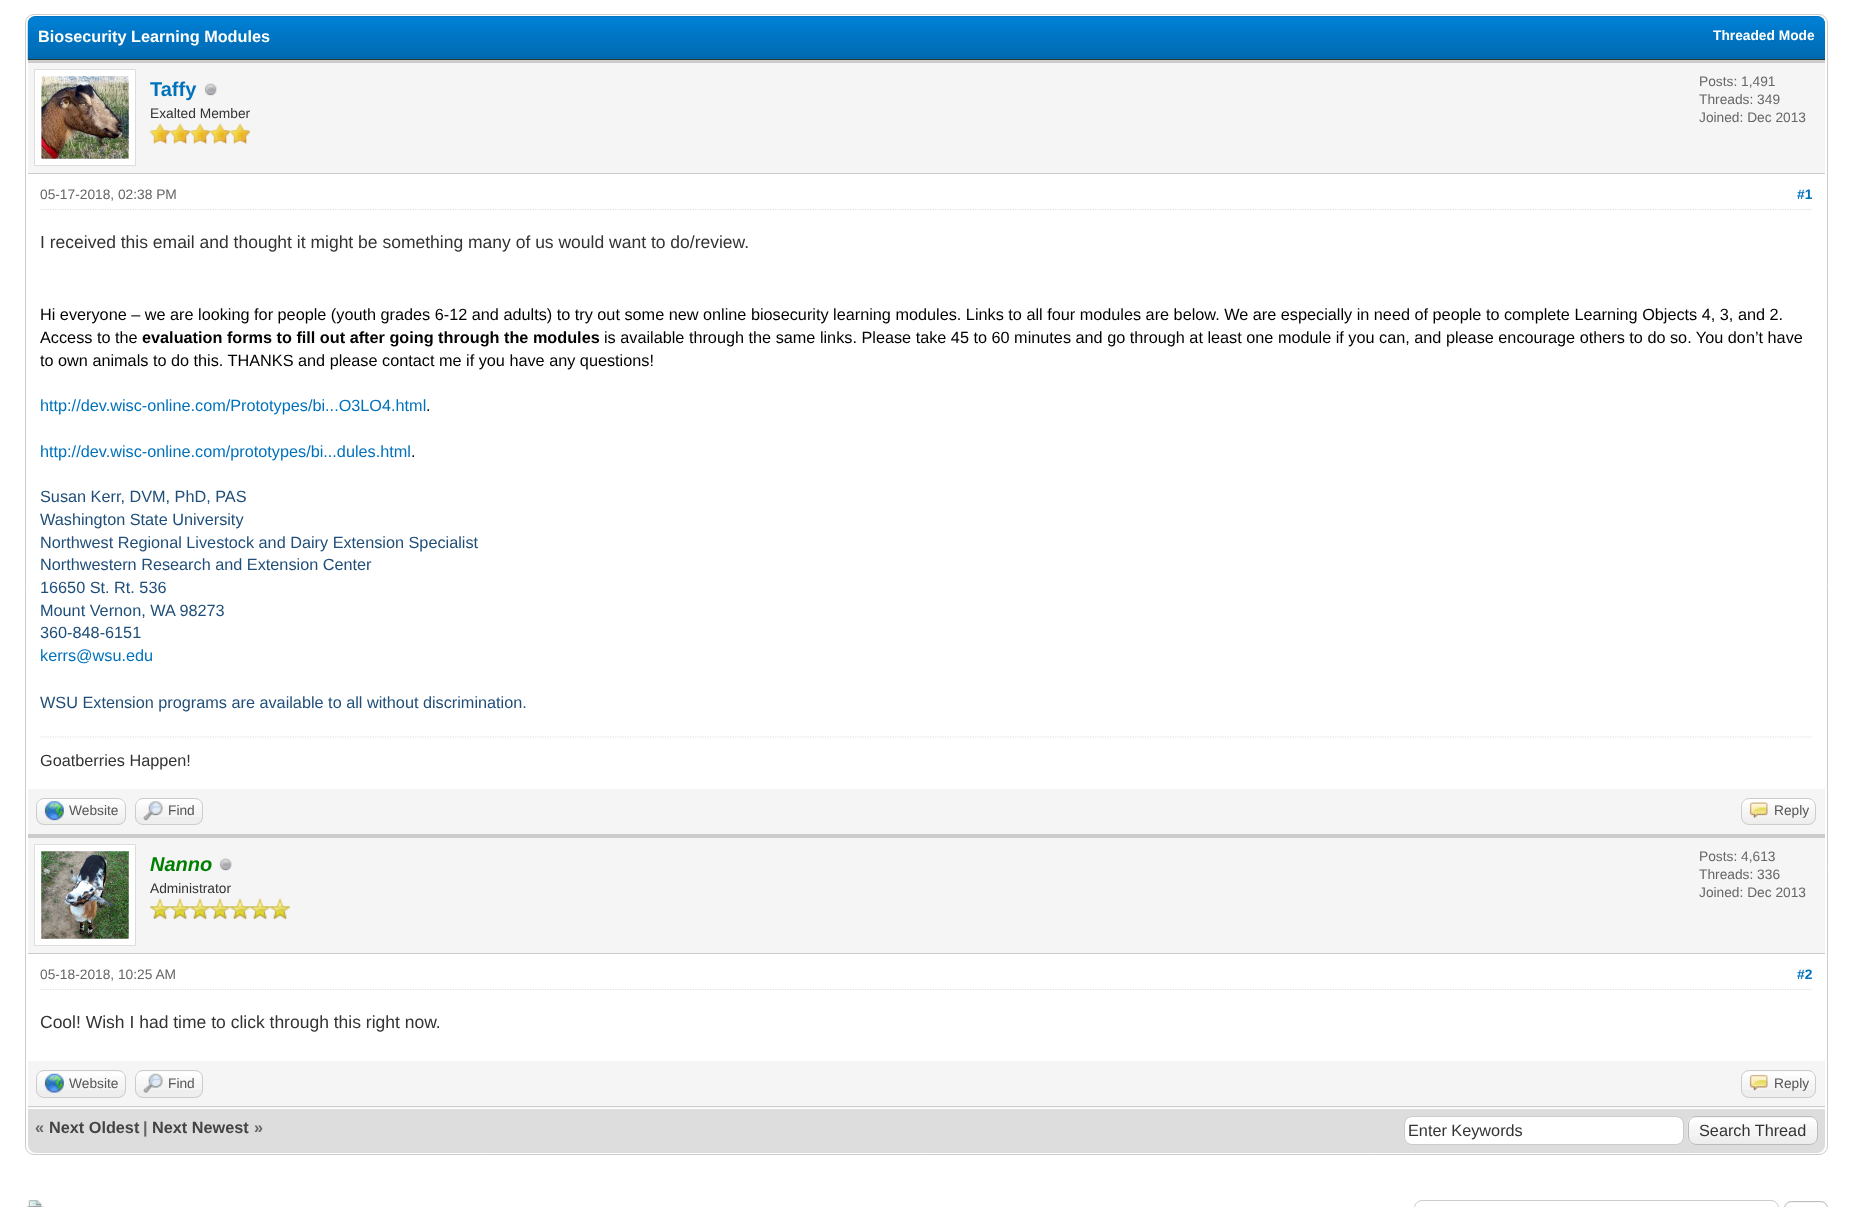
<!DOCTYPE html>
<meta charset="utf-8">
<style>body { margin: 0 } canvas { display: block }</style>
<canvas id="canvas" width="1852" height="1207"></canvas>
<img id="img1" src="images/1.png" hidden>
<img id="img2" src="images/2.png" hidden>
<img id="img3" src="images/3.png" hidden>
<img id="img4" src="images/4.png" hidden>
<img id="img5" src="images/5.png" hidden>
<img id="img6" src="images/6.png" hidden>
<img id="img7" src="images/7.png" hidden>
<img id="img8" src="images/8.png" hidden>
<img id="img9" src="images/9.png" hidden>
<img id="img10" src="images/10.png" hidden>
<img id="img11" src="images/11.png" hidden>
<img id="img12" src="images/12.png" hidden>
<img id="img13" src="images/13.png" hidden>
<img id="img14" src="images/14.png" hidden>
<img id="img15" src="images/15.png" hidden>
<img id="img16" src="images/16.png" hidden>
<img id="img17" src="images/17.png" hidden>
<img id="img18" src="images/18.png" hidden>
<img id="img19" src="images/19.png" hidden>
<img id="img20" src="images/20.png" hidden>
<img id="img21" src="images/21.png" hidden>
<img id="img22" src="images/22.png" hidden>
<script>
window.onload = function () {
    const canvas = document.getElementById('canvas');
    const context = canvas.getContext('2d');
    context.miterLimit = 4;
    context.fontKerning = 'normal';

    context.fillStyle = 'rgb(255, 255, 255)';
    context.fillRect(0, 0, 1852, 1207);
    context.beginPath();
    context.roundRect(25.5, 14.5, 1802, 1140, 8.5);
    context.strokeStyle = 'rgb(204, 204, 204)';
    context.stroke();
    context.fillStyle = 'rgb(0, 102, 162)';
    context.beginPath();
    context.roundRect(28, 16, 1797, 44, [8, 8, 0, 0]);
    context.fill();
    context.drawImage(document.getElementById('img1'), 27, 16, 1798, 44);
    context.fillStyle = 'rgb(38, 60, 48)';
    context.fillRect(28, 59, 1797, 1);
    context.fillStyle = 'rgb(245, 245, 245)';
    context.fillRect(28, 63, 1797, 110);
    context.fillStyle = 'rgb(204, 204, 204)';
    context.fillRect(28, 60, 1797, 3);
    context.fillRect(28, 173, 1797, 1);
    context.fillStyle = 'rgb(255, 255, 255)';
    context.beginPath();
    context.rect(34.5, 69.5, 101, 96);
    context.fill();
    context.strokeStyle = 'rgb(221, 221, 221)';
    context.stroke();
    context.drawImage(document.getElementById('img2'), 41, 76, 88, 83);
    context.drawImage(document.getElementById('img3'), 204, 83, 13, 13);
    context.drawImage(document.getElementById('img4'), 150, 123, 20, 21);
    context.drawImage(document.getElementById('img4'), 170, 123, 20, 21);
    context.drawImage(document.getElementById('img4'), 190, 123, 20, 21);
    context.drawImage(document.getElementById('img4'), 210, 123, 20, 21);
    context.drawImage(document.getElementById('img4'), 230, 123, 20, 21);
    context.beginPath();
    context.moveTo(40, 209.5);
    context.lineTo(1812.5, 209.5);
    context.lineWidth = 1.2;
    context.setLineDash([1.25, 1.25]);
    context.stroke();
    context.beginPath();
    context.moveTo(40, 737);
    context.lineTo(1812.5, 737);
    context.stroke();
    context.fillStyle = 'rgb(245, 245, 245)';
    context.fillRect(28, 789, 1797, 45);
    context.fillStyle = 'rgb(204, 204, 204)';
    context.fillRect(28, 834, 1797, 4);
    context.drawImage(document.getElementById('img5'), 36, 798, 90, 27);
    context.beginPath();
    context.roundRect(36.5, 798.5, 89, 26, 7.5);
    context.strokeStyle = 'rgb(204, 204, 204)';
    context.lineWidth = 1;
    context.setLineDash([]);
    context.stroke();
    context.drawImage(document.getElementById('img6'), 44, 801, 20, 20);
    context.fillStyle = 'rgb(238, 238, 238)';
    context.beginPath();
    context.roundRect(135, 798, 68, 27, 8);
    context.fill();
    context.drawImage(document.getElementById('img7'), 135, 798, 67, 19);
    context.beginPath();
    context.roundRect(135.5, 798.5, 67, 26, 7.5);
    context.stroke();
    context.drawImage(document.getElementById('img8'), 143, 801, 20, 20);
    context.drawImage(document.getElementById('img9'), 1741, 798, 75, 27);
    context.beginPath();
    context.roundRect(1741.5, 798.5, 74, 26, 7.5);
    context.stroke();
    context.drawImage(document.getElementById('img10'), 1749, 802, 19, 16);
    context.fillStyle = 'rgb(245, 245, 245)';
    context.fillRect(28, 838, 1797, 115);
    context.fillStyle = 'rgb(204, 204, 204)';
    context.fillRect(28, 953, 1797, 1);
    context.fillStyle = 'rgb(255, 255, 255)';
    context.beginPath();
    context.rect(34.5, 844.5, 101, 101);
    context.fill();
    context.strokeStyle = 'rgb(221, 221, 221)';
    context.stroke();
    context.drawImage(document.getElementById('img11'), 41, 851, 88, 88);
    context.drawImage(document.getElementById('img3'), 219, 858, 13, 13);
    context.drawImage(document.getElementById('img12'), 150, 898, 20, 21);
    context.drawImage(document.getElementById('img12'), 170, 898, 20, 21);
    context.drawImage(document.getElementById('img12'), 190, 898, 20, 21);
    context.drawImage(document.getElementById('img12'), 210, 898, 20, 21);
    context.drawImage(document.getElementById('img12'), 230, 898, 20, 21);
    context.drawImage(document.getElementById('img12'), 250, 898, 20, 21);
    context.drawImage(document.getElementById('img13'), 270, 898, 20, 21);
    context.beginPath();
    context.moveTo(40, 989.5);
    context.lineTo(1812.5, 989.5);
    context.lineWidth = 1.2;
    context.setLineDash([1.25, 1.25]);
    context.stroke();
    context.fillStyle = 'rgb(245, 245, 245)';
    context.fillRect(28, 1061, 1797, 47);
    context.fillStyle = 'rgb(204, 204, 204)';
    context.fillRect(28, 1106, 1797, 1);
    context.fillStyle = 'rgb(238, 238, 238)';
    context.beginPath();
    context.roundRect(36, 1070, 90, 28, 8);
    context.fill();
    context.drawImage(document.getElementById('img14'), 36, 1071, 90, 19);
    context.beginPath();
    context.roundRect(36.5, 1070.5, 89, 27, 7.5);
    context.strokeStyle = 'rgb(204, 204, 204)';
    context.lineWidth = 1;
    context.setLineDash([]);
    context.stroke();
    context.drawImage(document.getElementById('img15'), 44, 1073, 20, 20);
    context.beginPath();
    context.roundRect(135, 1070, 68, 28, 8);
    context.fill();
    context.drawImage(document.getElementById('img16'), 135, 1071, 67, 19);
    context.beginPath();
    context.roundRect(135.5, 1070.5, 67, 27, 7.5);
    context.stroke();
    context.drawImage(document.getElementById('img17'), 143, 1073, 20, 20);
    context.beginPath();
    context.roundRect(1741, 1070, 75, 28, 8);
    context.fill();
    context.drawImage(document.getElementById('img18'), 1741, 1071, 75, 19);
    context.beginPath();
    context.roundRect(1741.5, 1070.5, 74, 27, 7.5);
    context.stroke();
    context.drawImage(document.getElementById('img19'), 1749, 1074, 19, 17);
    context.fillStyle = 'rgb(221, 221, 221)';
    context.beginPath();
    context.roundRect(28, 1108, 1797, 45, [0, 0, 8, 8]);
    context.fill();
    context.fillStyle = 'rgb(255, 255, 255)';
    context.fillRect(28, 1108, 1797, 1);
    context.beginPath();
    context.roundRect(1404.5, 1116.5, 279, 28, 7.5);
    context.fill();
    context.stroke();
    context.fillStyle = 'rgb(238, 238, 238)';
    context.beginPath();
    context.roundRect(1688, 1116, 130, 29, 8);
    context.fill();
    context.drawImage(document.getElementById('img20'), 1687, 1117, 130, 28);
    context.beginPath();
    context.roundRect(1688.5, 1116.5, 129, 28, 7.5);
    context.strokeStyle = 'rgb(187, 187, 187)';
    context.stroke();
    context.drawImage(document.getElementById('img21'), 26, 1200, 18, 7);
    context.beginPath();
    context.roundRect(1414.5, 1200.5, 364, 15, 7.5);
    context.strokeStyle = 'rgb(204, 204, 204)';
    context.stroke();
    context.beginPath();
    context.roundRect(1784, 1201, 44, 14, 8);
    context.fill();
    context.drawImage(document.getElementById('img22'), 1784, 1202, 43, 5);
    context.beginPath();
    context.roundRect(1784.5, 1201.5, 43, 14, 7.5);
    context.strokeStyle = 'rgb(187, 187, 187)';
    context.stroke();
    context.font = 'bold 16.25px Liberation Sans';
    context.fillStyle = 'rgb(255, 255, 255)';
    context.fillText('Biosecurity Learning Modules', 38, 42);
    context.font = 'bold 13.75px Liberation Sans';
    context.fillText('Threaded Mode', 1713, 40);
    context.font = 'bold 20px Liberation Sans';
    context.fillStyle = 'rgb(0, 114, 188)';
    context.fillText('Taffy', 150, 96);
    context.font = '13.75px Liberation Sans';
    context.fillStyle = 'rgb(51, 51, 51)';
    context.fillText('Exalted Member', 150, 118);
    context.fillStyle = 'rgb(102, 102, 102)';
    context.fillText('Posts: 1,491', 1699, 86);
    context.fillText('Threads: 349', 1699, 104);
    context.fillText('Joined: Dec 2013', 1699, 122);
    context.fillText('05-17-2018, 02:38 PM', 40, 199);
    context.font = 'bold 13.75px Liberation Sans';
    context.fillStyle = 'rgb(0, 114, 188)';
    context.fillText('#1', 1797, 199);
    context.font = '17.5px Liberation Sans';
    context.fillStyle = 'rgb(51, 51, 51)';
    context.fillText('I received this email and thought it might be something many of us would want to do/review.', 40, 248);
    context.font = '16.25px Liberation Sans';
    context.fillStyle = 'rgb(0, 0, 0)';
    context.fillText('Hi everyone – we are looking for people (youth grades 6-12 and adults) to try out some new online biosecurity learning modules. Links to all four modules are below. We are especially in need of people to complete Learning Objects 4, 3, and 2.', 40, 320);
    context.fillText('Access to the', 40, 343);
    context.font = 'bold 16.25px Liberation Sans';
    context.fillText('evaluation forms to fill out after going through the modules', 142, 343);
    context.font = '16.25px Liberation Sans';
    context.fillText('is available through the same links. Please take 45 to 60 minutes and go through at least one module if you can, and please encourage others to do so. You don’t have', 604, 343);
    context.fillText('to own animals to do this. THANKS and please contact me if you have any questions!', 40, 366);
    context.fillStyle = 'rgb(0, 114, 188)';
    context.fillText('http://dev.wisc-online.com/Prototypes/bi...O3LO4.html', 40, 411);
    context.fillStyle = 'rgb(0, 0, 0)';
    context.fillText('.', 426, 411);
    context.fillStyle = 'rgb(0, 114, 188)';
    context.fillText('http://dev.wisc-online.com/prototypes/bi...dules.html', 40, 457);
    context.fillStyle = 'rgb(0, 0, 0)';
    context.fillText('.', 411, 457);
    context.fillStyle = 'rgb(31, 78, 121)';
    context.fillText('Susan Kerr, DVM, PhD, PAS', 40, 502);
    context.fillText('Washington State University', 40, 525);
    context.fillText('Northwest Regional Livestock and Dairy Extension Specialist', 40, 548);
    context.fillText('Northwestern Research and Extension Center', 40, 570);
    context.fillText('16650 St. Rt. 536', 40, 593);
    context.fillText('Mount Vernon, WA 98273', 40, 616);
    context.fillText('360-848-6151', 40, 638);
    context.fillStyle = 'rgb(0, 114, 188)';
    context.fillText('kerrs@wsu.edu', 40, 661);
    context.fillStyle = 'rgb(31, 78, 121)';
    context.fillText('WSU Extension programs are available to all without discrimination.', 40, 708);
    context.fillStyle = 'rgb(51, 51, 51)';
    context.fillText('Goatberries Happen!', 40, 766);
    context.font = '13.75px Liberation Sans';
    context.fillStyle = 'rgb(85, 85, 85)';
    context.fillText('Website', 69, 815);
    context.fillText('Find', 168, 815);
    context.fillText('Reply', 1774, 815);
    context.font = 'italic bold 20px Liberation Sans';
    context.fillStyle = 'rgb(0, 128, 0)';
    context.fillText('Nanno', 150, 871);
    context.font = '13.75px Liberation Sans';
    context.fillStyle = 'rgb(51, 51, 51)';
    context.fillText('Administrator', 150, 893);
    context.fillStyle = 'rgb(102, 102, 102)';
    context.fillText('Posts: 4,613', 1699, 861);
    context.fillText('Threads: 336', 1699, 879);
    context.fillText('Joined: Dec 2013', 1699, 897);
    context.fillText('05-18-2018, 10:25 AM', 40, 979);
    context.font = 'bold 13.75px Liberation Sans';
    context.fillStyle = 'rgb(0, 114, 188)';
    context.fillText('#2', 1797, 979);
    context.font = '17.5px Liberation Sans';
    context.fillStyle = 'rgb(51, 51, 51)';
    context.fillText('Cool! Wish I had time to click through this right now.', 40, 1028);
    context.font = '13.75px Liberation Sans';
    context.fillStyle = 'rgb(85, 85, 85)';
    context.fillText('Website', 69, 1088);
    context.fillText('Find', 168, 1088);
    context.fillText('Reply', 1774, 1088);
    context.font = 'bold 16.25px Liberation Sans';
    context.fillStyle = 'rgb(102, 102, 102)';
    context.fillText('«', 35, 1133);
    context.fillStyle = 'rgb(68, 68, 68)';
    context.fillText('Next Oldest', 49, 1133);
    context.fillStyle = 'rgb(102, 102, 102)';
    context.fillText('|', 143, 1133);
    context.fillStyle = 'rgb(68, 68, 68)';
    context.fillText('Next Newest', 152, 1133);
    context.fillStyle = 'rgb(102, 102, 102)';
    context.fillText('»', 254, 1133);
    context.font = '16.25px Liberation Sans';
    context.fillStyle = 'rgb(51, 51, 51)';
    context.fillText('Enter Keywords', 1408, 1136);
    context.fillText('Search Thread', 1699, 1136);
};
</script>
